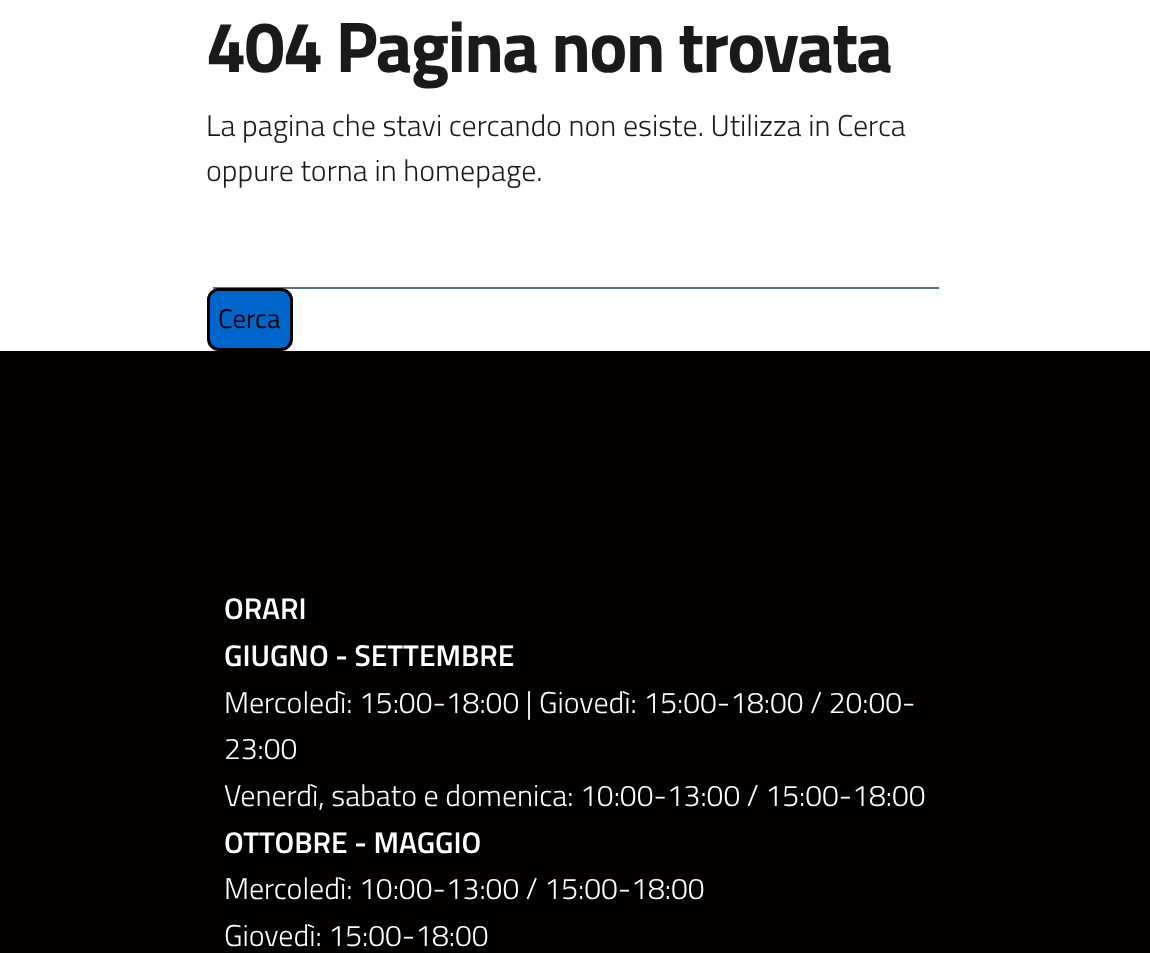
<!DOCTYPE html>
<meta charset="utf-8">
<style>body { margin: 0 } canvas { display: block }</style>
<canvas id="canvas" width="1150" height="953"></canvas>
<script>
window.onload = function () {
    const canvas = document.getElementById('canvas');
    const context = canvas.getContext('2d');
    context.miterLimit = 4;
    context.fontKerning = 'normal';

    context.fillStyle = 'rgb(255, 255, 255)';
    context.fillRect(0, 0, 1150, 953);
    context.fillStyle = 'rgb(93, 112, 131)';
    context.fillRect(213, 287, 726, 2);
    context.fillStyle = 'rgb(0, 102, 204)';
    context.beginPath();
    context.roundRect(208.5, 289.5, 83, 60, 10.5);
    context.fill();
    context.strokeStyle = 'rgb(0, 0, 0)';
    context.lineWidth = 3;
    context.stroke();
    context.fillStyle = 'rgb(2, 0, 0)';
    context.fillRect(0, 351, 1150, 602);
    context.letterSpacing = '-1.8px';
    context.font = 'bold 72px Titillium Web';
    context.fillStyle = 'rgb(26, 26, 26)';
    context.fillText('404 Pagina non trovata', 206, 72);
    context.letterSpacing = '0px';
    context.font = '300 30px Titillium Web';
    context.fillText('La pagina che stavi cercando non esiste. Utilizza in Cerca', 206, 136);
    context.fillText('oppure torna in homepage.', 206, 181);
    context.font = '27px Titillium Web';
    context.fillStyle = 'rgb(0, 0, 0)';
    context.fillText('Cerca', 218, 328);
    context.font = '600 30px Titillium Web';
    context.fillStyle = 'rgb(255, 255, 255)';
    context.fillText('ORARI', 224, 619);
    context.fillText('GIUGNO - SETTEMBRE', 224, 666);
    context.font = '300 30px Titillium Web';
    context.fillText('Mercoledì: 15:00-18:00 | Giovedì: 15:00-18:00 / 20:00-', 224, 713);
    context.fillText('23:00', 224, 759);
    context.fillText('Venerdì, sabato e domenica: 10:00-13:00 / 15:00-18:00', 224, 806);
    context.font = '600 30px Titillium Web';
    context.fillText('OTTOBRE - MAGGIO', 224, 853);
    context.font = '300 30px Titillium Web';
    context.fillText('Mercoledì: 10:00-13:00 / 15:00-18:00', 224, 899);
    context.fillText('Giovedì: 15:00-18:00', 224, 946);
};
</script>
